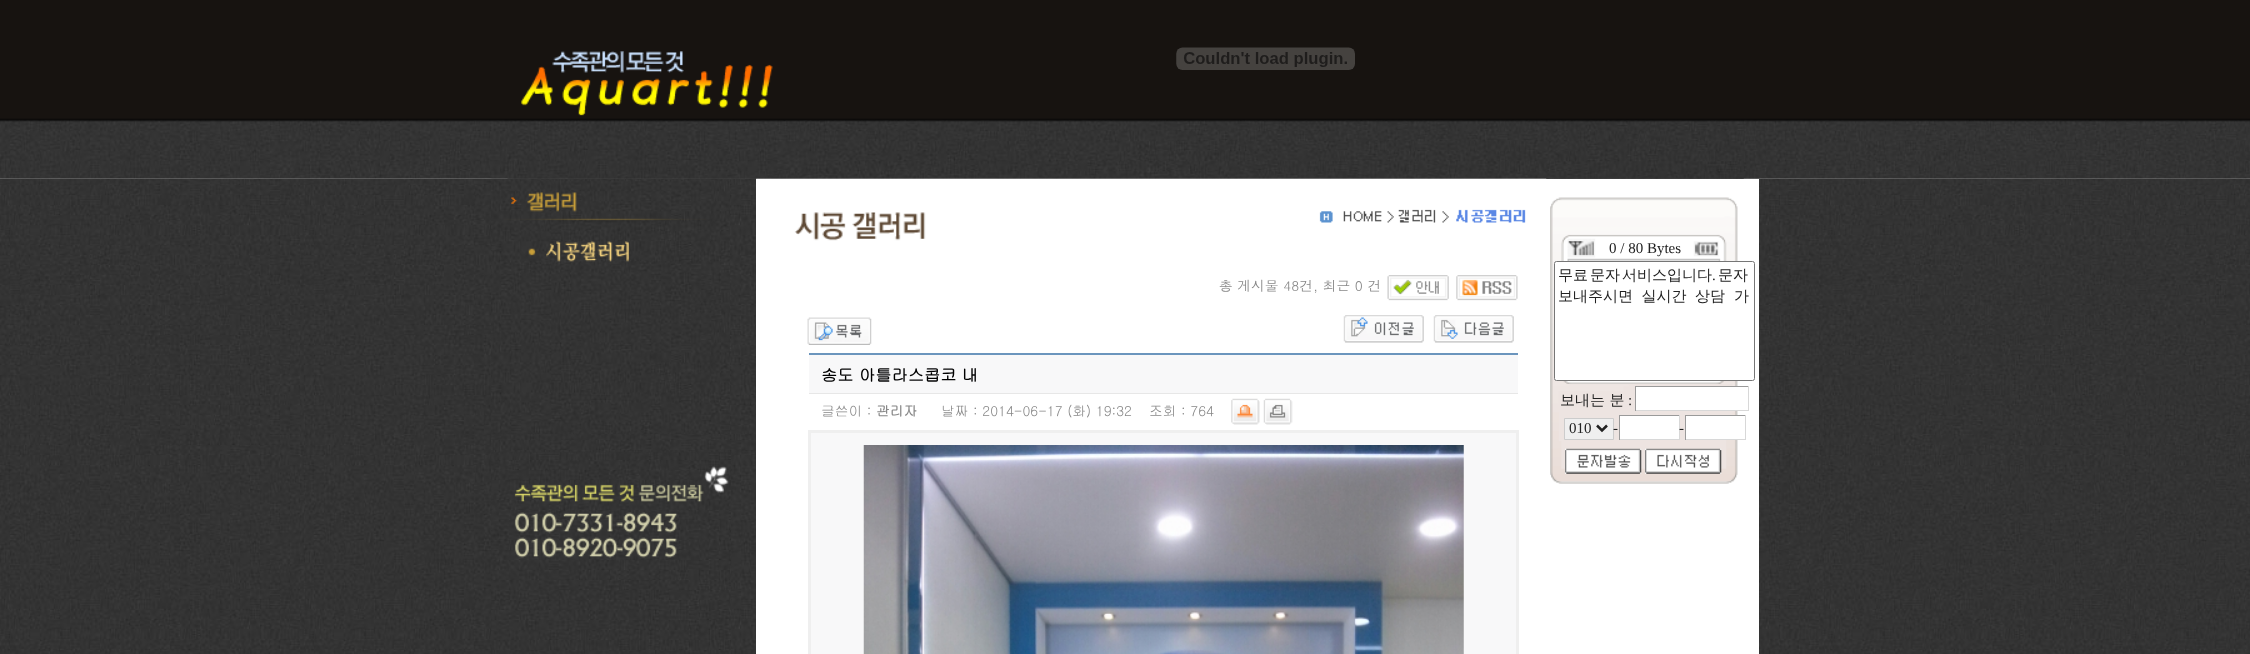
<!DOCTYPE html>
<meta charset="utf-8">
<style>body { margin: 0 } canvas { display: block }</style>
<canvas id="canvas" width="2250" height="654"></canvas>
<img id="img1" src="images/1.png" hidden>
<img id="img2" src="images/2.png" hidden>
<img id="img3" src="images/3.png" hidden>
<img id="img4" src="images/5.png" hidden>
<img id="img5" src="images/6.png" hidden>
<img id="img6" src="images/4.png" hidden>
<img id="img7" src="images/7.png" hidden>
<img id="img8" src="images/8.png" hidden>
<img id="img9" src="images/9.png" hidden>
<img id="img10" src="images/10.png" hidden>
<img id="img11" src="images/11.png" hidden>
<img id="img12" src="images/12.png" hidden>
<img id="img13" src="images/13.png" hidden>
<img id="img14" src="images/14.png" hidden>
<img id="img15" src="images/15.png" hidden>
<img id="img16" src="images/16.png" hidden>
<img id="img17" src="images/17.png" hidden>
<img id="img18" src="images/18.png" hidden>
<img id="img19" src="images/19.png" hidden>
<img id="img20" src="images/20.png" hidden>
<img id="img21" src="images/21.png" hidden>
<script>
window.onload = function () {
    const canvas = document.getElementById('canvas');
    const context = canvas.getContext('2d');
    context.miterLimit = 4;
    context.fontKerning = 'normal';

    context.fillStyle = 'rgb(255, 255, 255)';
    context.fillRect(0, 0, 2250, 654);
    context.fillStyle = 'rgb(23, 19, 16)';
    context.fillRect(0, 0, 2250, 117);
    context.drawImage(document.getElementById('img1'), 521, 51, 252, 65);
    context.drawImage(document.getElementById('img2'), 1176, 47, 179, 23);
    context.drawImage(document.getElementById('img3'), 0, 117, 2250, 62);
    context.drawImage(document.getElementById('img4'), 0, 178, 2250, 476);
    context.drawImage(document.getElementById('img5'), 491, 178, 265, 476);
    context.drawImage(document.getElementById('img6'), 507, 120, 1237, 59);
    context.drawImage(document.getElementById('img7'), 491, 179, 239, 255);
    context.drawImage(document.getElementById('img8'), 491, 434, 265, 19);
    context.drawImage(document.getElementById('img9'), 491, 452, 240, 202);
    context.fillStyle = 'rgb(255, 255, 255)';
    context.fillRect(756, 179, 1003, 475);
    context.drawImage(document.getElementById('img10'), 756, 178, 791, 63);
    context.drawImage(document.getElementById('img11'), 1387, 275, 62, 26);
    context.drawImage(document.getElementById('img12'), 1456, 275, 62, 26);
    context.drawImage(document.getElementById('img13'), 807, 317, 65, 28);
    context.drawImage(document.getElementById('img14'), 1343, 315, 81, 28);
    context.drawImage(document.getElementById('img15'), 1433, 315, 81, 28);
    context.fillStyle = 'rgb(107, 149, 189)';
    context.fillRect(809, 353, 709, 2);
    context.fillStyle = 'rgb(248, 248, 249)';
    context.fillRect(809, 355, 709, 38);
    context.fillStyle = 'rgb(231, 231, 231)';
    context.fillRect(809, 393, 709, 1);
    context.drawImage(document.getElementById('img16'), 1231, 398, 29, 27);
    context.drawImage(document.getElementById('img17'), 1263, 398, 30, 27);
    context.fillStyle = 'rgb(248, 248, 249)';
    context.fillRect(811, 433, 705, 221);
    context.fillStyle = 'rgb(239, 239, 239)';
    context.fillRect(808, 430, 711, 3);
    context.fillRect(1516, 430, 3, 224);
    context.fillRect(808, 430, 3, 224);
    context.drawImage(document.getElementById('img18'), 863, 445, 601, 209);
    context.drawImage(document.getElementById('img19'), 1550, 197, 188, 287);
    context.fillStyle = 'rgb(255, 255, 255)';
    context.beginPath();
    context.roundRect(1554.5, 261.5, 200, 119, 2);
    context.fill();
    context.strokeStyle = 'rgb(118, 118, 118)';
    context.stroke();
    context.fillRect(1636, 387, 102, 23);
    context.fillStyle = 'rgb(154, 154, 154)';
    context.fillRect(1635, 386, 114, 1);
    context.fillStyle = 'rgb(216, 216, 216)';
    context.fillRect(1748, 386, 1, 25);
    context.fillRect(1635, 410, 114, 1);
    context.fillStyle = 'rgb(154, 154, 154)';
    context.fillRect(1635, 386, 1, 25);
    context.fillStyle = 'rgb(239, 239, 239)';
    context.beginPath();
    context.rect(1564.5, 418.5, 49, 21);
    context.fill();
    context.strokeStyle = 'rgb(204, 204, 204)';
    context.stroke();
    context.beginPath();
    context.moveTo(1597, 425.5);
    context.lineTo(1602, 430.5);
    context.lineTo(1607, 425.5);
    context.strokeStyle = 'rgb(34, 34, 34)';
    context.lineWidth = 2.5;
    context.stroke();
    context.fillStyle = 'rgb(255, 255, 255)';
    context.fillRect(1620, 416, 59, 23);
    context.fillStyle = 'rgb(154, 154, 154)';
    context.fillRect(1619, 415, 61, 1);
    context.fillStyle = 'rgb(216, 216, 216)';
    context.fillRect(1679, 415, 1, 25);
    context.fillRect(1619, 439, 61, 1);
    context.fillStyle = 'rgb(154, 154, 154)';
    context.fillRect(1619, 415, 1, 25);
    context.fillStyle = 'rgb(255, 255, 255)';
    context.fillRect(1686, 416, 52, 23);
    context.fillStyle = 'rgb(154, 154, 154)';
    context.fillRect(1685, 415, 61, 1);
    context.fillStyle = 'rgb(216, 216, 216)';
    context.fillRect(1745, 415, 1, 25);
    context.fillRect(1685, 439, 61, 1);
    context.fillStyle = 'rgb(154, 154, 154)';
    context.fillRect(1685, 415, 1, 25);
    context.drawImage(document.getElementById('img20'), 1565, 448, 77, 26);
    context.drawImage(document.getElementById('img21'), 1645, 448, 77, 26);
    context.font = '13.75px Dotum';
    context.fillStyle = 'rgb(136, 136, 136)';
    context.fillText('총 게시물 48건, 최근 0 건', 1219, 291);
    context.font = 'bold 16.25px Gulim';
    context.fillStyle = 'rgb(0, 0, 0)';
    context.fillText('송도 아틀라스콥코 내', 821, 381);
    context.font = '13.75px Gulim';
    context.fillStyle = 'rgb(136, 136, 136)';
    context.fillText('글쓴이 :', 821, 416);
    context.font = 'bold 13.75px Gulim';
    context.fillText('관리자', 876, 416);
    context.font = '13.75px Gulim';
    context.fillText('날짜 : 2014-06-17 (화) 19:32', 941, 416);
    context.fillText('조회 : 764', 1149, 416);
    context.font = '15px Liberation Serif';
    context.fillStyle = 'rgb(34, 34, 34)';
    context.fillText('0 / 80 Bytes', 1609, 253);
    context.font = '500 15px WenQuanYi Zen Hei';
    context.fillText('무료', 1558, 280);
    context.fillText('문자', 1590, 280);
    context.fillText('서비스입니다', 1622, 280);
    context.font = '15px Liberation Serif';
    context.fillText('.', 1712, 280);
    context.font = '500 15px WenQuanYi Zen Hei';
    context.fillText('문자', 1718, 280);
    context.wordSpacing = '4px';
    context.fillText('보내주시면 실시간 상담', 1558, 301);
    context.wordSpacing = '0px';
    context.fillText('가', 1734, 301);
    context.fillText('보내는 분', 1560, 405);
    context.font = '15px Liberation Serif';
    context.fillText(':', 1628, 405);
    context.fillText('010', 1569, 433);
    context.fillText('-', 1613, 433);
    context.fillText('-', 1679, 433);
};
</script>
